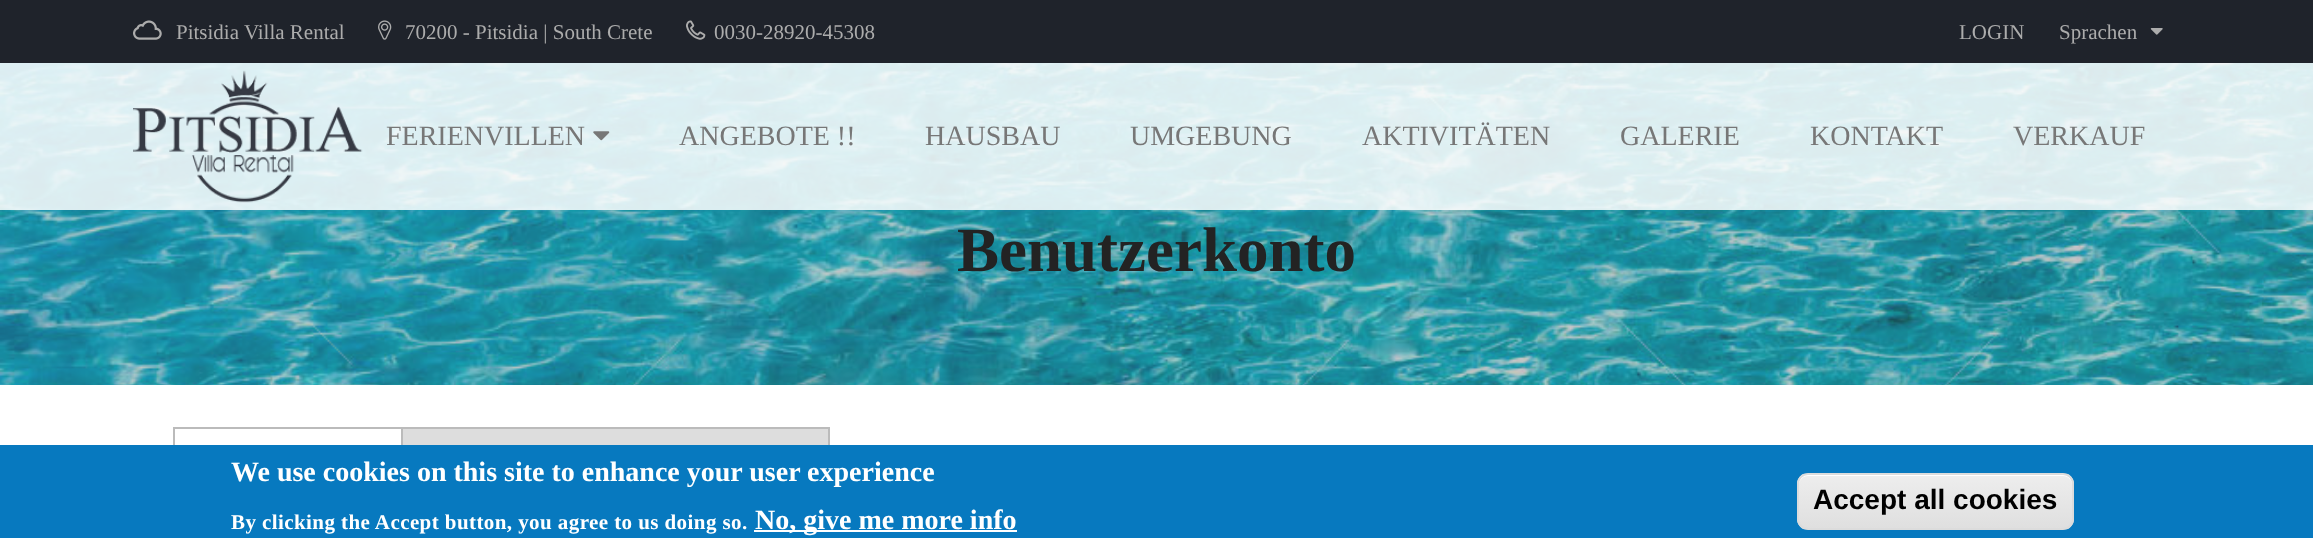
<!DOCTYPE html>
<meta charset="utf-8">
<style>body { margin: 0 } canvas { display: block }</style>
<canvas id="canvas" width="2313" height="538"></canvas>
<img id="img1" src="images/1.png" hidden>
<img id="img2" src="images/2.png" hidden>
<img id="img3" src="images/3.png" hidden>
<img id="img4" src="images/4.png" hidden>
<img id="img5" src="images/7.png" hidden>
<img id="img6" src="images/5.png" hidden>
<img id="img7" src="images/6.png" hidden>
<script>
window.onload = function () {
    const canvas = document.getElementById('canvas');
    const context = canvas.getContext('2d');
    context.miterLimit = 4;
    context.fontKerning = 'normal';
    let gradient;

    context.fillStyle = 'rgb(255, 255, 255)';
    context.fillRect(0, 0, 2313, 538);
    context.fillStyle = 'rgb(31, 35, 43)';
    context.fillRect(0, 0, 2313, 63);
    context.drawImage(document.getElementById('img1'), 133, 20, 29, 20);
    context.drawImage(document.getElementById('img2'), 378, 20, 14, 20);
    context.drawImage(document.getElementById('img3'), 686, 20, 20, 20);
    context.drawImage(document.getElementById('img4'), 2150, 28, 13, 7);
    context.drawImage(document.getElementById('img5'), 0, 63, 2313, 322);
    context.fillStyle = 'rgba(255, 255, 255, 0.85)';
    context.fillRect(0, 63, 2313, 147);
    context.drawImage(document.getElementById('img6'), 133, 70, 230, 133);
    context.drawImage(document.getElementById('img7'), 593, 131, 17, 10);
    context.fillStyle = 'rgb(187, 187, 187)';
    context.fillRect(173, 427, 657, 2);
    context.fillRect(173, 427, 2, 18);
    context.fillRect(401, 427, 2, 18);
    context.fillStyle = 'rgb(221, 221, 221)';
    context.fillRect(403, 429, 425, 16);
    context.fillStyle = 'rgb(187, 187, 187)';
    context.fillRect(828, 427, 2, 18);
    context.fillStyle = 'rgb(7, 121, 191)';
    context.fillRect(0, 445, 2313, 93);
    context.fillStyle = 'rgb(255, 255, 255)';
    context.fillRect(754, 530, 263, 2);
    context.save();
    context.beginPath();
    context.roundRect(1797, 473, 277, 57, 11);
    context.clip();
    gradient = context.createLinearGradient(1936, 474, 1936, 529);
    gradient.addColorStop(0.05, 'rgb(237, 237, 237)');
    gradient.addColorStop(1, 'rgb(223, 223, 223)');
    context.fillStyle = gradient;
    context.fillRect(1797, 474, 277, 55);
    context.restore();
    context.beginPath();
    context.moveTo(1808, 476);
    context.lineTo(2063, 476);
    context.bezierCurveTo(2068, 476, 2072, 480, 2072, 485);
    context.lineTo(2072, 483);
    context.bezierCurveTo(2072, 478, 2068, 474, 2063, 474);
    context.lineTo(1808, 474);
    context.bezierCurveTo(1803, 474, 1799, 478, 1799, 483);
    context.lineTo(1799, 485);
    context.bezierCurveTo(1799, 480, 1803, 476, 1808, 476);
    context.closePath();
    context.fill();
    context.beginPath();
    context.roundRect(1798, 474, 275, 55, 10);
    context.strokeStyle = 'rgb(220, 220, 220)';
    context.lineWidth = 2;
    context.stroke();
    context.font = '21px Liberation Serif';
    context.fillStyle = 'rgb(172, 172, 172)';
    context.fillText('Pitsidia Villa Rental', 176, 39);
    context.fillText('70200 - Pitsidia | South Crete', 405, 39);
    context.fillText('0030-28920-45308', 714, 39);
    context.fillText('LOGIN', 1959, 39);
    context.fillText('Sprachen', 2059, 39);
    context.font = '28px Liberation Serif';
    context.fillStyle = 'rgb(119, 119, 119)';
    context.fillText('FERIENVILLEN', 386, 145);
    context.fillText('ANGEBOTE !!', 679, 145);
    context.fillText('HAUSBAU', 925, 145);
    context.fillText('UMGEBUNG', 1130, 145);
    context.fillText('AKTIVITÄTEN', 1362, 145);
    context.fillText('GALERIE', 1620, 145);
    context.fillText('KONTAKT', 1810, 145);
    context.fillText('VERKAUF', 2013, 145);
    context.font = 'bold 63px Liberation Serif';
    context.fillStyle = 'rgb(35, 35, 35)';
    context.fillText('Benutzerkonto', 957, 271);
    context.font = 'bold 28px Liberation Serif';
    context.fillStyle = 'rgb(255, 255, 255)';
    context.fillText('We use cookies on this site to enhance your user experience', 231, 481);
    context.letterSpacing = '0.42px';
    context.font = 'bold 21px Liberation Serif';
    context.fillText('By clicking the Accept button, you agree to us doing so.', 231, 529);
    context.letterSpacing = '0px';
    context.font = 'bold 28px Liberation Serif';
    context.fillText('No, give me more info', 755, 529);
    context.font = 'bold 28px Liberation Sans';
    context.fillStyle = 'rgb(0, 0, 0)';
    context.fillText('Accept all cookies', 1813, 509);
};
</script>
